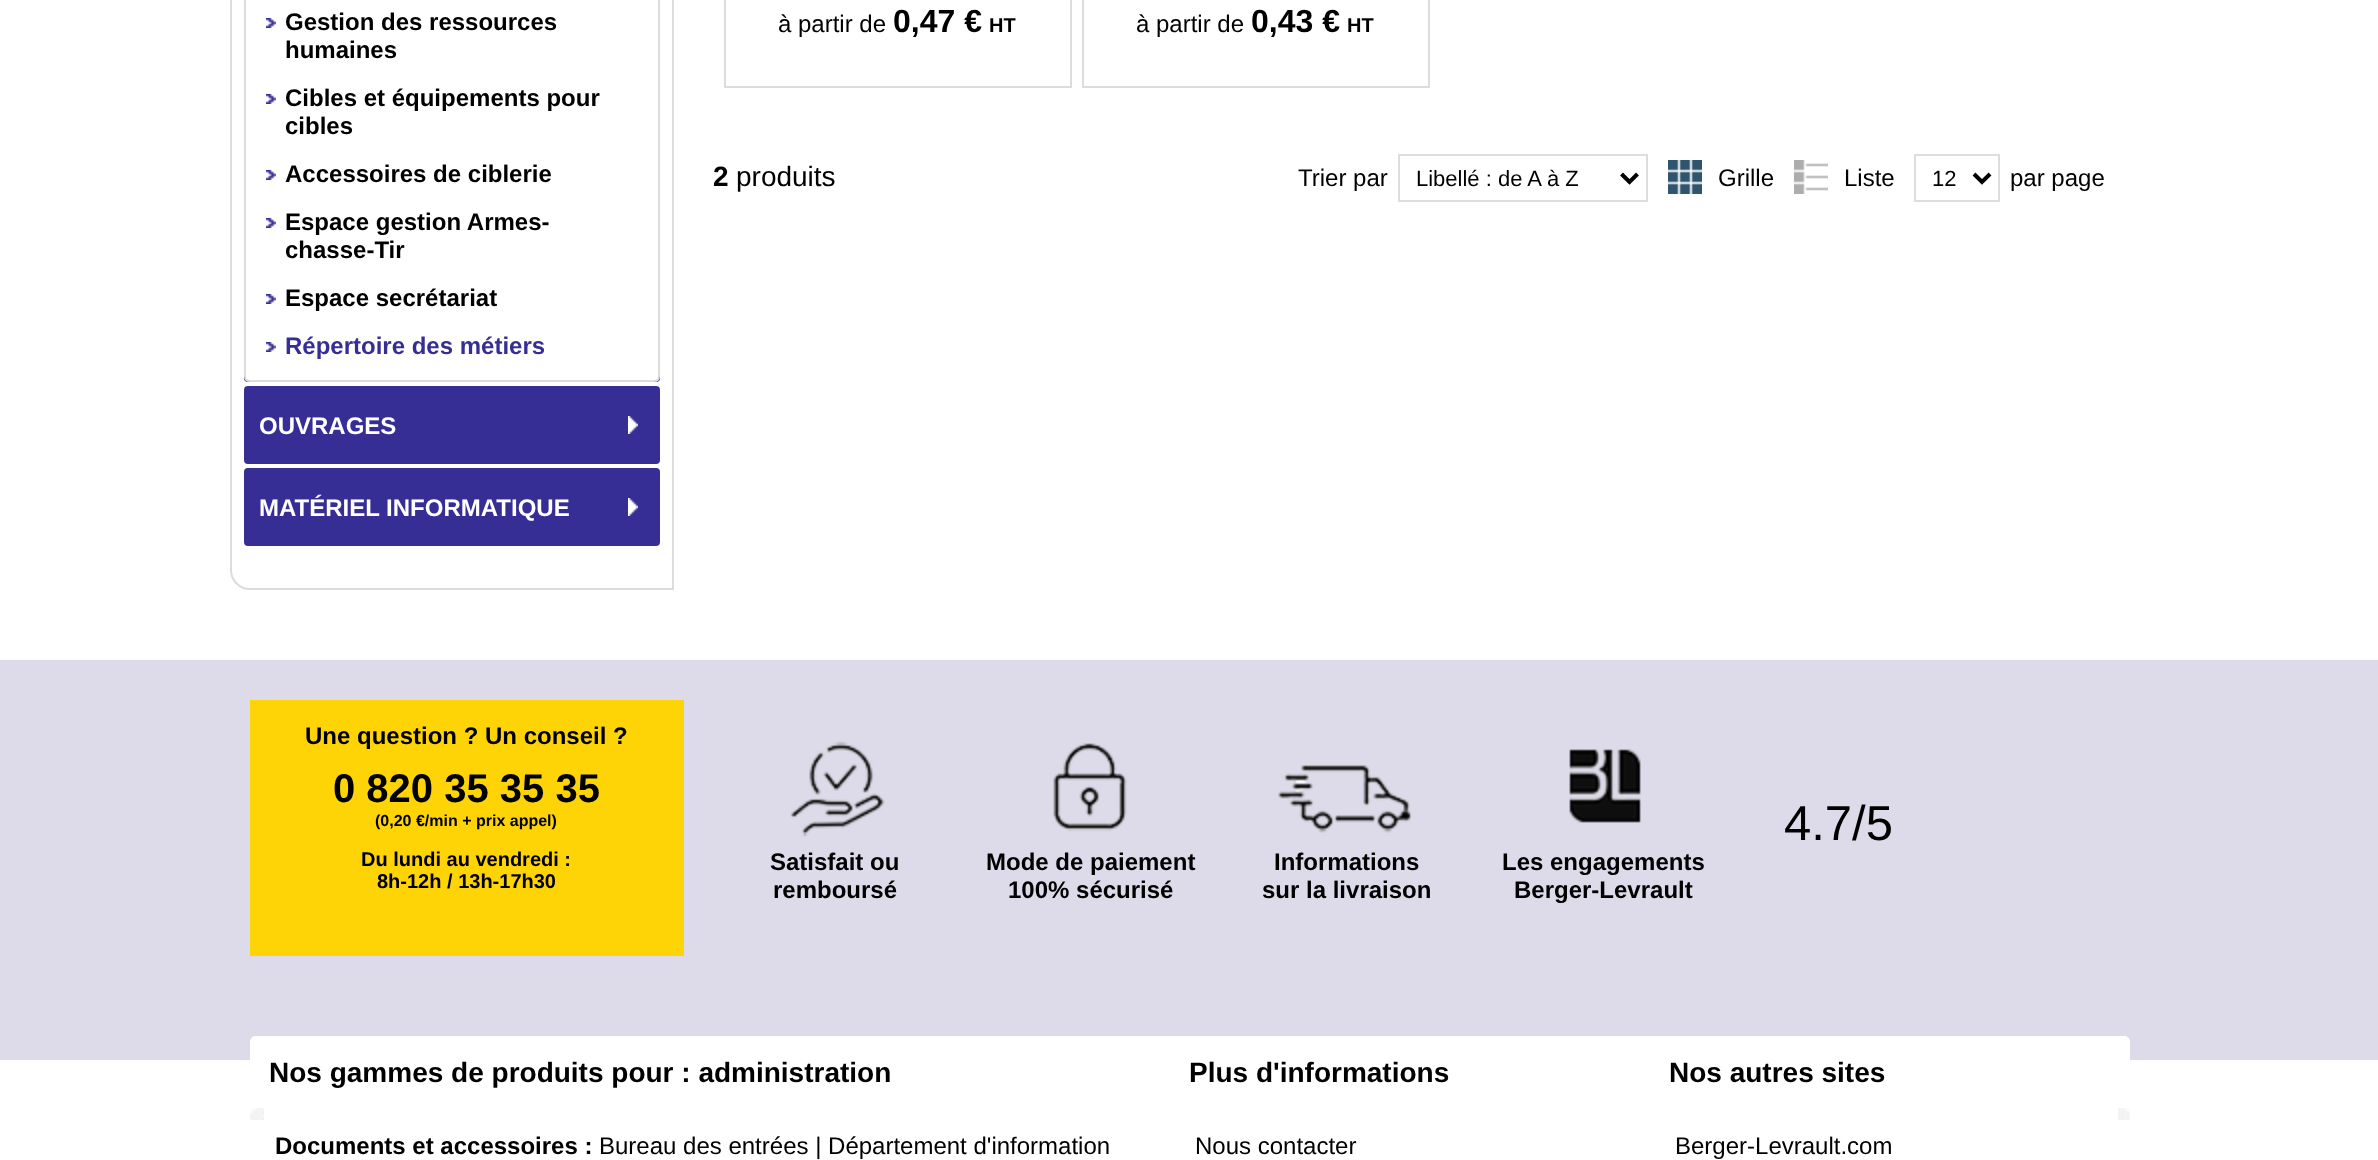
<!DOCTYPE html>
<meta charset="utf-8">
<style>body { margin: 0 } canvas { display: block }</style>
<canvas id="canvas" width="2378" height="1160"></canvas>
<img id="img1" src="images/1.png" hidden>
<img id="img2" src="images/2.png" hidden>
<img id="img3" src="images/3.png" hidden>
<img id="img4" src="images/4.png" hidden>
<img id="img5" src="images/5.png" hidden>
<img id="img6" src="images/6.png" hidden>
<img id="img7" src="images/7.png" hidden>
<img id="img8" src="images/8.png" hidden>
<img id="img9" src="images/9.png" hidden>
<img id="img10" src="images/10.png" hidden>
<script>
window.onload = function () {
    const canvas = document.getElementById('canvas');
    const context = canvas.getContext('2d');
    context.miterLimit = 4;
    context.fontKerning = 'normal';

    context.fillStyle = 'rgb(255, 255, 255)';
    context.fillRect(0, 0, 2378, 1160);
    context.beginPath();
    context.moveTo(231, -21);
    context.lineTo(654, -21);
    context.bezierCurveTo(664.5, -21, 673, -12.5, 673, -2);
    context.lineTo(673, 589);
    context.lineTo(250, 589);
    context.bezierCurveTo(239.5, 589, 231, 580.5, 231, 570);
    context.closePath();
    context.strokeStyle = 'rgb(220, 220, 220)';
    context.lineWidth = 2;
    context.stroke();
    context.fillStyle = 'rgb(55, 46, 149)';
    context.beginPath();
    context.roundRect(243, -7, 418, 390, 5);
    context.fill();
    context.strokeStyle = 'rgb(255, 255, 255)';
    context.stroke();
    context.fillStyle = 'rgb(255, 255, 255)';
    context.beginPath();
    context.moveTo(245, -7);
    context.lineTo(659, -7);
    context.lineTo(659, 376);
    context.bezierCurveTo(659, 379, 657, 381, 654, 381);
    context.lineTo(250, 381);
    context.bezierCurveTo(247, 381, 245, 379, 245, 376);
    context.closePath();
    context.fill();
    context.strokeStyle = 'rgb(220, 220, 220)';
    context.stroke();
    context.drawImage(document.getElementById('img1'), 266, 18, 10, 10);
    context.drawImage(document.getElementById('img1'), 266, 94, 10, 10);
    context.drawImage(document.getElementById('img1'), 266, 170, 10, 10);
    context.drawImage(document.getElementById('img1'), 266, 218, 10, 10);
    context.drawImage(document.getElementById('img1'), 266, 294, 10, 10);
    context.drawImage(document.getElementById('img1'), 266, 342, 10, 10);
    context.fillStyle = 'rgb(55, 46, 149)';
    context.beginPath();
    context.roundRect(243, 385, 418, 80, 5);
    context.fill();
    context.strokeStyle = 'rgb(255, 255, 255)';
    context.stroke();
    context.drawImage(document.getElementById('img2'), 628, 416, 10, 18);
    context.beginPath();
    context.roundRect(243, 467, 418, 80, 5);
    context.fill();
    context.stroke();
    context.drawImage(document.getElementById('img2'), 628, 498, 10, 18);
    context.strokeStyle = 'rgb(220, 220, 220)';
    context.strokeRect(725, -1, 346, 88);
    context.strokeRect(1083, -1, 346, 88);
    context.strokeStyle = 'rgb(221, 221, 221)';
    context.strokeRect(1399, 155, 248, 46);
    context.beginPath();
    context.moveTo(1621.5, 174);
    context.lineTo(1629.5, 182);
    context.lineTo(1637.5, 174);
    context.strokeStyle = 'rgb(0, 0, 0)';
    context.lineWidth = 4;
    context.stroke();
    context.drawImage(document.getElementById('img3'), 1668, 160, 34, 34);
    context.drawImage(document.getElementById('img4'), 1794, 160, 34, 34);
    context.strokeStyle = 'rgb(221, 221, 221)';
    context.lineWidth = 2;
    context.strokeRect(1915, 155, 84, 46);
    context.beginPath();
    context.moveTo(1974, 174);
    context.lineTo(1982, 182);
    context.lineTo(1990, 174);
    context.strokeStyle = 'rgb(0, 0, 0)';
    context.lineWidth = 4;
    context.stroke();
    context.fillStyle = 'rgb(221, 219, 233)';
    context.fillRect(0, 660, 2378, 400);
    context.fillStyle = 'rgb(254, 212, 6)';
    context.fillRect(250, 700, 434, 256);
    context.drawImage(document.getElementById('img5'), 790, 741, 95, 96);
    context.drawImage(document.getElementById('img6'), 1053, 742, 74, 90);
    context.drawImage(document.getElementById('img7'), 1278, 764, 134, 69);
    context.drawImage(document.getElementById('img8'), 1569, 749, 72, 74);
    context.fillStyle = 'rgb(255, 255, 255)';
    context.beginPath();
    context.roundRect(250, 1036, 1880, 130, 6);
    context.fill();
    context.beginPath();
    context.roundRect(250, 1036, 920, 72, [6, 0, 0, 0]);
    context.fill();
    context.drawImage(document.getElementById('img9'), 250, 1108, 14, 12);
    context.beginPath();
    context.roundRect(1650, 1036, 480, 72, [0, 6, 0, 0]);
    context.fill();
    context.drawImage(document.getElementById('img10'), 2118, 1108, 12, 12);
    context.font = 'bold 24px Liberation Sans';
    context.fillStyle = 'rgb(0, 0, 0)';
    context.fillText('Gestion des ressources', 285, 30);
    context.fillText('humaines', 285, 58);
    context.fillText('Cibles et équipements pour', 285, 106);
    context.fillText('cibles', 285, 134);
    context.fillText('Accessoires de ciblerie', 285, 182);
    context.fillText('Espace gestion Armes-', 285, 230);
    context.fillText('chasse-Tir', 285, 258);
    context.fillText('Espace secrétariat', 285, 306);
    context.fillStyle = 'rgb(55, 46, 149)';
    context.fillText('Répertoire des métiers', 285, 354);
    context.fillStyle = 'rgb(255, 255, 255)';
    context.fillText('OUVRAGES', 259, 434);
    context.fillText('MATÉRIEL INFORMATIQUE', 259, 516);
    context.font = '24px Liberation Sans';
    context.fillStyle = 'rgb(0, 0, 0)';
    context.fillText('à partir de', 778, 32);
    context.font = 'bold 32px Liberation Sans';
    context.fillText('0,47 €', 893, 32);
    context.font = 'bold 20px Liberation Sans';
    context.fillText('HT', 989, 32);
    context.font = '24px Liberation Sans';
    context.fillText('à partir de', 1136, 32);
    context.font = 'bold 32px Liberation Sans';
    context.fillText('0,43 €', 1251, 32);
    context.font = 'bold 20px Liberation Sans';
    context.fillText('HT', 1347, 32);
    context.font = 'bold 28px Liberation Sans';
    context.fillText('2', 713, 186);
    context.font = '28px Liberation Sans';
    context.fillText('produits', 736, 186);
    context.font = '24px Liberation Sans';
    context.fillText('Trier par', 1298, 186);
    context.font = '22px Liberation Sans';
    context.fillText('Libellé : de A à Z', 1416, 186);
    context.font = '24px Liberation Sans';
    context.fillText('Grille', 1718, 186);
    context.fillText('Liste', 1844, 186);
    context.font = '22px Liberation Sans';
    context.fillText('12', 1932, 186);
    context.font = '24px Liberation Sans';
    context.fillText('par page', 2010, 186);
    context.font = 'bold 24px Liberation Sans';
    context.fillText('Une question ? Un conseil ?', 305, 744);
    context.font = 'bold 40px Liberation Sans';
    context.fillText('0 820 35 35 35', 333, 802);
    context.font = 'bold 16px Liberation Sans';
    context.fillText('(0,20 €/min + prix appel)', 375, 826);
    context.font = 'bold 20px Liberation Sans';
    context.fillText('Du lundi au vendredi :', 361, 866);
    context.fillText('8h-12h / 13h-17h30', 377, 888);
    context.font = '49px Liberation Sans';
    context.fillText('4.7/5', 1784, 840);
    context.font = 'bold 24px Liberation Sans';
    context.fillText('Satisfait ou', 770, 870);
    context.fillText('remboursé', 773, 898);
    context.fillText('Mode de paiement', 986, 870);
    context.fillText('100% sécurisé', 1008, 898);
    context.fillText('Informations', 1274, 870);
    context.fillText('sur la livraison', 1262, 898);
    context.fillText('Les engagements', 1502, 870);
    context.fillText('Berger-Levrault', 1514, 898);
    context.font = 'bold 28px Liberation Sans';
    context.fillText('Nos gammes de produits pour : administration', 269, 1082);
    context.font = 'bold 24px Liberation Sans';
    context.fillText('Documents et accessoires :', 275, 1154);
    context.font = '24px Liberation Sans';
    context.fillText('Bureau des entrées | Département d\'information', 599, 1154);
    context.font = 'bold 28px Liberation Sans';
    context.fillText('Plus d\'informations', 1189, 1082);
    context.font = '24px Liberation Sans';
    context.fillText('Nous contacter', 1195, 1154);
    context.font = 'bold 28px Liberation Sans';
    context.fillText('Nos autres sites', 1669, 1082);
    context.font = '24px Liberation Sans';
    context.fillText('Berger-Levrault.com', 1675, 1154);
};
</script>
